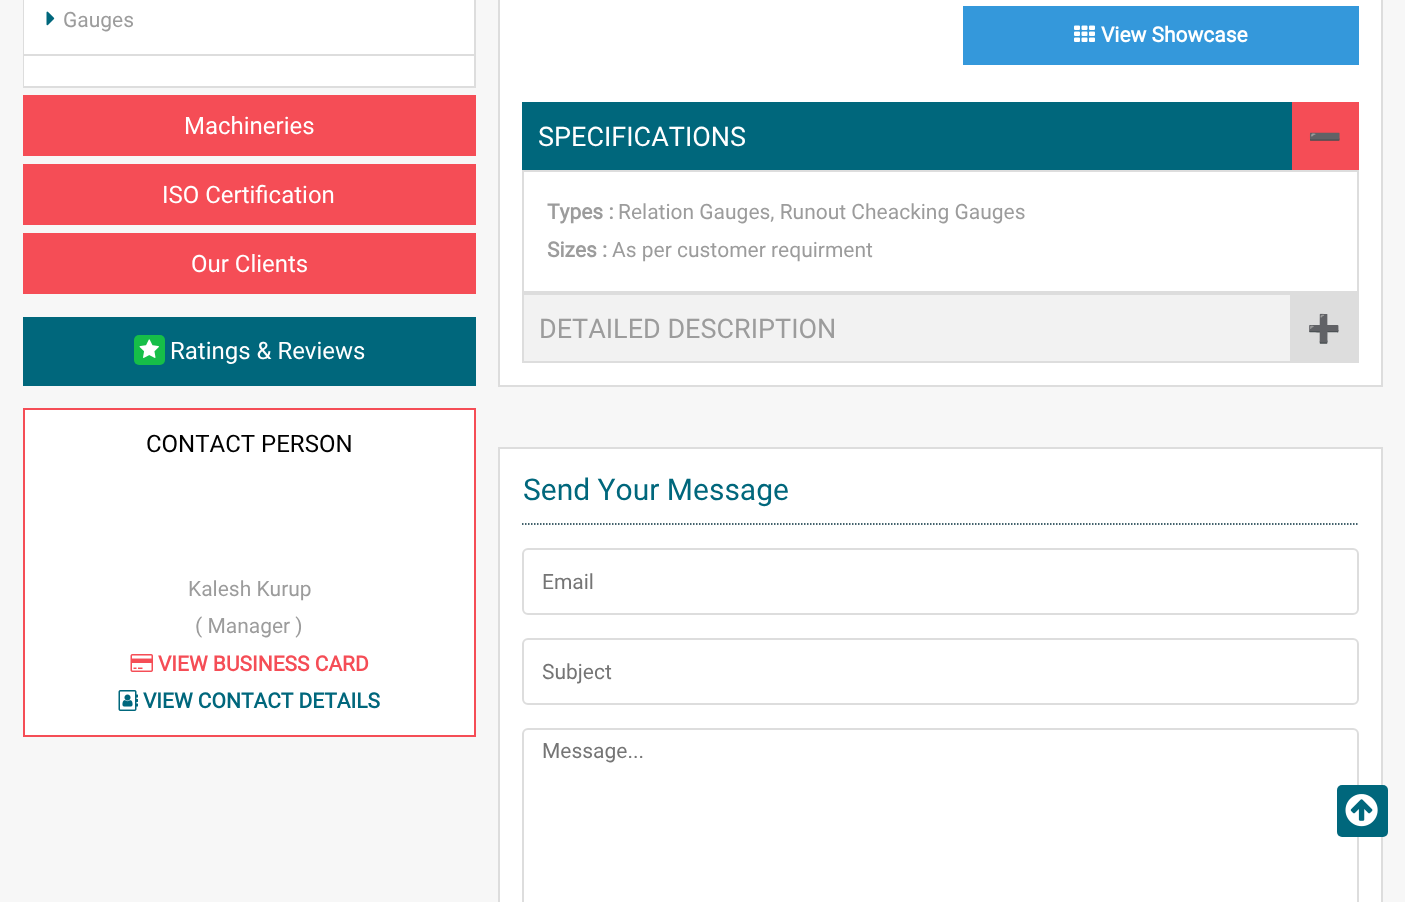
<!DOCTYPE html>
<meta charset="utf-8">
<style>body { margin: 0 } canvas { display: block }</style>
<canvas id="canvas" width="1405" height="902"></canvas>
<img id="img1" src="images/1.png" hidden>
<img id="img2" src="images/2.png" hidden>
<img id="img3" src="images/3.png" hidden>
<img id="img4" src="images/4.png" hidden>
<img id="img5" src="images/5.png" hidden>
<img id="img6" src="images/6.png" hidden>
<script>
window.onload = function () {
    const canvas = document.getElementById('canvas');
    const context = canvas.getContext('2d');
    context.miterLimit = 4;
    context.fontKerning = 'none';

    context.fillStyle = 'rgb(247, 247, 247)';
    context.fillRect(0, 0, 1405, 902);
    context.fillStyle = 'rgb(221, 221, 221)';
    context.fillRect(23, 86, 453, 2);
    context.strokeStyle = 'rgb(221, 221, 221)';
    context.lineWidth = 2;
    context.strokeRect(24, -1, 451, 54);
    context.fillStyle = 'rgb(255, 255, 255)';
    context.fillRect(24, 0, 450, 54);
    context.drawImage(document.getElementById('img1'), 46, 11, 9, 15);
    context.strokeRect(24, 55, 451, 30);
    context.fillRect(24, 56, 450, 30);
    context.fillStyle = 'rgb(245, 77, 86)';
    context.fillRect(23, 95, 453, 61);
    context.fillRect(23, 164, 453, 61);
    context.fillRect(23, 233, 453, 61);
    context.fillStyle = 'rgb(0, 103, 124)';
    context.fillRect(23, 317, 453, 69);
    context.fillStyle = 'rgb(22, 190, 72)';
    context.beginPath();
    context.roundRect(134, 335, 31, 30, 5);
    context.fill();
    context.drawImage(document.getElementById('img2'), 139, 339, 20, 19);
    context.fillStyle = 'rgb(255, 255, 255)';
    context.beginPath();
    context.rect(24, 409, 451, 327);
    context.fill();
    context.strokeStyle = 'rgb(245, 77, 86)';
    context.stroke();
    context.drawImage(document.getElementById('img3'), 130, 654, 23, 18);
    context.drawImage(document.getElementById('img4'), 118, 690, 20, 21);
    context.beginPath();
    context.rect(499, -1, 883, 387);
    context.fill();
    context.strokeStyle = 'rgb(221, 221, 221)';
    context.stroke();
    context.fillStyle = 'rgb(52, 152, 219)';
    context.fillRect(963, 6, 396, 59);
    context.drawImage(document.getElementById('img5'), 1074, 25, 21, 17);
    context.fillStyle = 'rgb(0, 103, 124)';
    context.fillRect(522, 102, 770, 68);
    context.fillStyle = 'rgb(245, 77, 86)';
    context.fillRect(1292, 102, 67, 68);
    context.strokeRect(523, 171, 835, 121);
    context.fillStyle = 'rgb(242, 242, 242)';
    context.fillRect(524, 295, 766, 66);
    context.strokeRect(523, 294, 835, 68);
    context.fillStyle = 'rgb(221, 221, 221)';
    context.fillRect(1290, 295, 67, 66);
    context.fillStyle = 'rgb(255, 255, 255)';
    context.beginPath();
    context.rect(499, 448, 883, 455);
    context.fill();
    context.stroke();
    context.beginPath();
    context.moveTo(522, 524);
    context.lineTo(1359, 524);
    context.strokeStyle = 'rgb(6, 47, 60)';
    context.lineWidth = 1.5;
    context.setLineDash([1.5, 1.5]);
    context.stroke();
    context.beginPath();
    context.roundRect(523, 549, 835, 65, 5);
    context.strokeStyle = 'rgb(221, 221, 221)';
    context.lineWidth = 2;
    context.setLineDash([]);
    context.stroke();
    context.beginPath();
    context.roundRect(523, 639, 835, 65, 5);
    context.stroke();
    context.beginPath();
    context.roundRect(523, 729, 835, 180, 5);
    context.stroke();
    context.fillStyle = 'rgb(0, 103, 124)';
    context.beginPath();
    context.roundRect(1337, 785, 51, 52, 5);
    context.fill();
    context.drawImage(document.getElementById('img6'), 1345, 794, 33, 33);
    context.font = '21px Roboto';
    context.fillStyle = 'rgb(156, 156, 156)';
    context.fillText('Gauges', 63, 27);
    context.font = '24px Roboto';
    context.fillStyle = 'rgb(255, 255, 255)';
    context.fillText('Machineries', 184, 134);
    context.fillText('ISO Certification', 162, 203);
    context.fillText('Our Clients', 191, 272);
    context.fillText('Ratings & Reviews', 170, 359);
    context.fillStyle = 'rgb(0, 0, 0)';
    context.fillText('CONTACT PERSON', 146, 452);
    context.font = '21px Roboto';
    context.fillStyle = 'rgb(156, 156, 156)';
    context.fillText('Kalesh Kurup', 188, 596);
    context.fillText('( Manager )', 195, 633);
    context.font = 'bold 21px Roboto';
    context.fillStyle = 'rgb(245, 77, 86)';
    context.fillText('VIEW BUSINESS CARD', 158, 671);
    context.fillStyle = 'rgb(0, 103, 124)';
    context.fillText('VIEW CONTACT DETAILS', 143, 708);
    context.fillStyle = 'rgb(255, 255, 255)';
    context.fillText('View Showcase', 1101, 42);
    context.font = '27px Roboto';
    context.fillText('SPECIFICATIONS', 538, 146);
    context.font = '27px Noto Color Emoji';
    context.fillText('➖', 1308, 146);
    context.font = 'bold 21px Roboto';
    context.fillStyle = 'rgb(156, 156, 156)';
    context.fillText('Types :', 547, 219);
    context.font = '21px Roboto';
    context.fillText('Relation Gauges, Runout Cheacking Gauges', 618, 219);
    context.font = 'bold 21px Roboto';
    context.fillText('Sizes :', 547, 257);
    context.font = '21px Roboto';
    context.fillText('As per customer requirment', 612, 257);
    context.font = '27px Roboto';
    context.fillText('DETAILED DESCRIPTION', 539, 338);
    context.font = '27px Noto Color Emoji';
    context.fillText('➕', 1307, 338);
    context.font = '30px Roboto';
    context.fillStyle = 'rgb(0, 103, 124)';
    context.fillText('Send Your Message', 523, 500);
    context.font = '21px Roboto';
    context.fillStyle = 'rgb(117, 117, 117)';
    context.fillText('Email', 542, 589);
    context.fillText('Subject', 542, 679);
    context.fillText('Message...', 542, 758);
};
</script>
